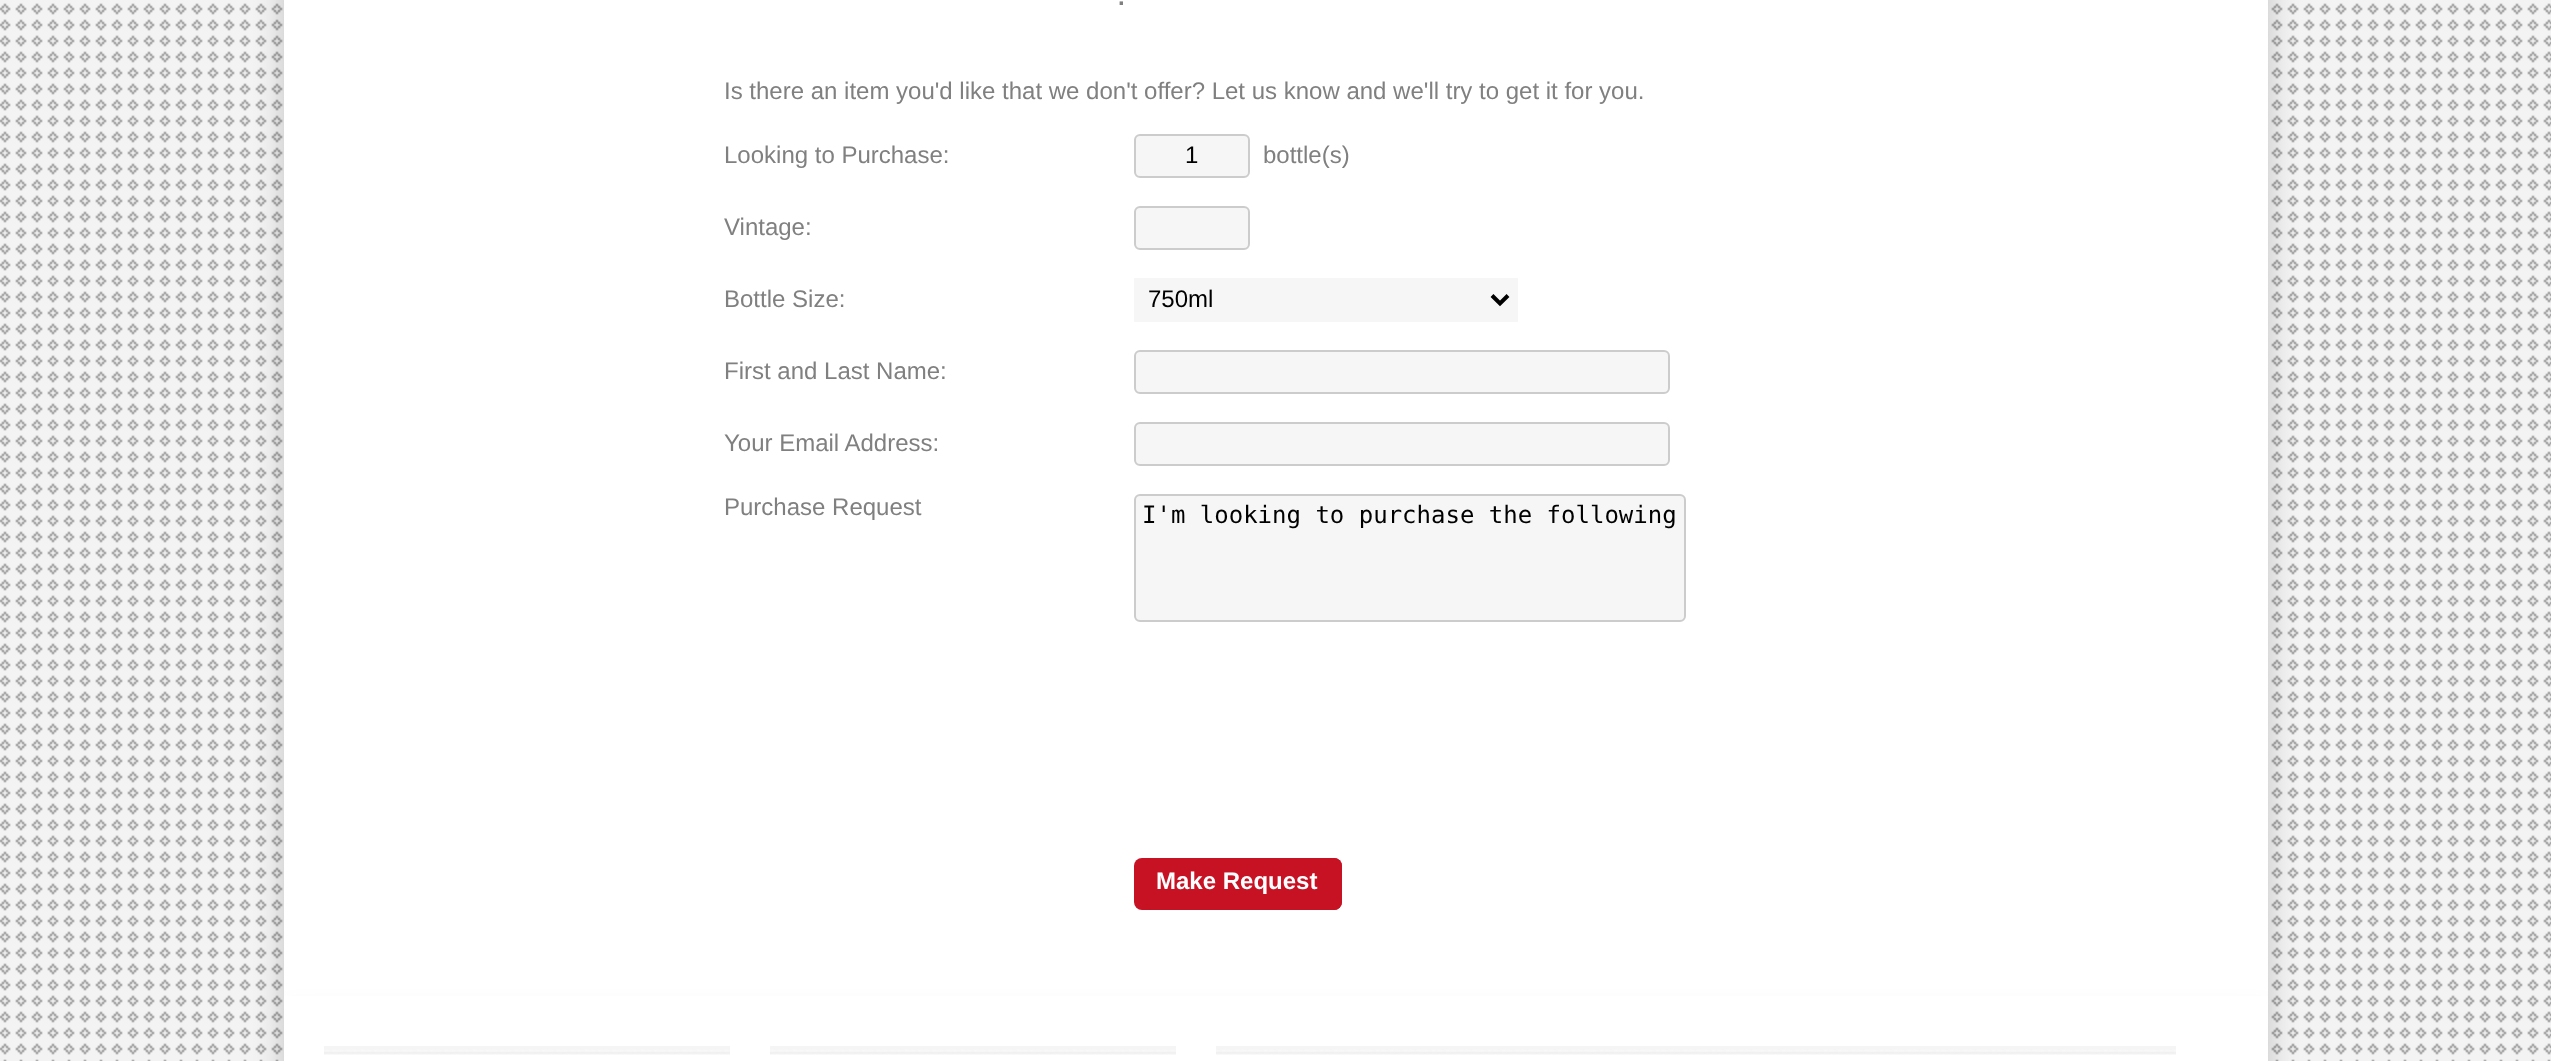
<!DOCTYPE html>
<meta charset="utf-8">
<style>body { margin: 0 } canvas { display: block }</style>
<canvas id="canvas" width="2551" height="1061"></canvas>
<img id="img1" src="images/1.png" hidden>
<img id="img2" src="images/2.png" hidden>
<img id="img3" src="images/3.png" hidden>
<script>
window.onload = function () {
    const canvas = document.getElementById('canvas');
    const context = canvas.getContext('2d');
    context.miterLimit = 4;
    context.fontKerning = 'normal';

    context.fillStyle = 'rgb(243, 243, 243)';
    context.fillRect(0, 0, 2551, 1061);
    context.drawImage(document.getElementById('img1'), 0, 3, 2551, 1058);
    context.fillStyle = 'rgba(0, 0, 0, 0.2)';
    context.filter = 'blur(15px)';
    context.beginPath();
    context.rect(284, -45, 1984, 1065);
    context.fill();
    context.filter = 'none';
    context.fillStyle = 'rgb(255, 255, 255)';
    context.fillRect(284, 0, 1984, 996);
    context.fillStyle = 'rgb(246, 246, 246)';
    context.beginPath();
    context.roundRect(1135, 135, 114, 42, 5);
    context.fill();
    context.strokeStyle = 'rgb(204, 204, 204)';
    context.lineWidth = 2;
    context.stroke();
    context.beginPath();
    context.roundRect(1135, 207, 114, 42, 5);
    context.fill();
    context.stroke();
    context.fillRect(1134, 278, 384, 44);
    context.beginPath();
    context.moveTo(1492, 295.5);
    context.lineTo(1500, 303.5);
    context.lineTo(1508, 295.5);
    context.strokeStyle = 'rgb(0, 0, 0)';
    context.lineWidth = 4;
    context.stroke();
    context.beginPath();
    context.roundRect(1135, 351, 534, 42, 5);
    context.fill();
    context.strokeStyle = 'rgb(204, 204, 204)';
    context.lineWidth = 2;
    context.stroke();
    context.beginPath();
    context.roundRect(1135, 423, 534, 42, 5);
    context.fill();
    context.stroke();
    context.beginPath();
    context.roundRect(1135, 495, 550, 126, 5);
    context.fill();
    context.stroke();
    context.fillStyle = 'rgb(199, 18, 36)';
    context.beginPath();
    context.roundRect(1134, 858, 208, 52, 8);
    context.fill();
    context.beginPath();
    context.roundRect(1146, 858, 196, 52, 8);
    context.fill();
    context.fillStyle = 'rgba(0, 0, 0, 0.2)';
    context.filter = 'blur(15px)';
    context.beginPath();
    context.rect(284, 1020, 1984, 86);
    context.fill();
    context.filter = 'none';
    context.fillStyle = 'rgb(255, 255, 255)';
    context.fillRect(284, 996, 1984, 65);
    context.drawImage(document.getElementById('img2'), 324, 1046, 406, 9);
    context.drawImage(document.getElementById('img2'), 770, 1046, 406, 9);
    context.drawImage(document.getElementById('img3'), 1216, 1046, 960, 9);
    context.font = 'bold 24px Liberation Sans';
    context.fillStyle = 'rgb(128, 128, 128)';
    context.fillText('.', 1118, 5);
    context.font = '24px Liberation Sans';
    context.fillText('Is there an item you\'d like that we don\'t offer? Let us know and we\'ll try to get it for you.', 724, 99);
    context.fillText('Looking to Purchase:', 724, 163);
    context.fillStyle = 'rgb(0, 0, 0)';
    context.fillText('1', 1185, 163);
    context.fillStyle = 'rgb(128, 128, 128)';
    context.fillText('bottle(s)', 1263, 163);
    context.fillText('Vintage:', 724, 235);
    context.fillText('Bottle Size:', 724, 307);
    context.fillStyle = 'rgb(0, 0, 0)';
    context.fillText('750ml', 1148, 307);
    context.fillStyle = 'rgb(128, 128, 128)';
    context.fillText('First and Last Name:', 724, 379);
    context.fillText('Your Email Address:', 724, 451);
    context.fillText('Purchase Request', 724, 515);
    context.font = '24px DejaVu Sans Mono';
    context.fillStyle = 'rgb(0, 0, 0)';
    context.fillText('I\'m looking to purchase the following', 1142, 523);
    context.font = 'bold 24px Liberation Sans';
    context.fillStyle = 'rgb(255, 255, 255)';
    context.fillText('Make Request', 1156, 889);
};
</script>
